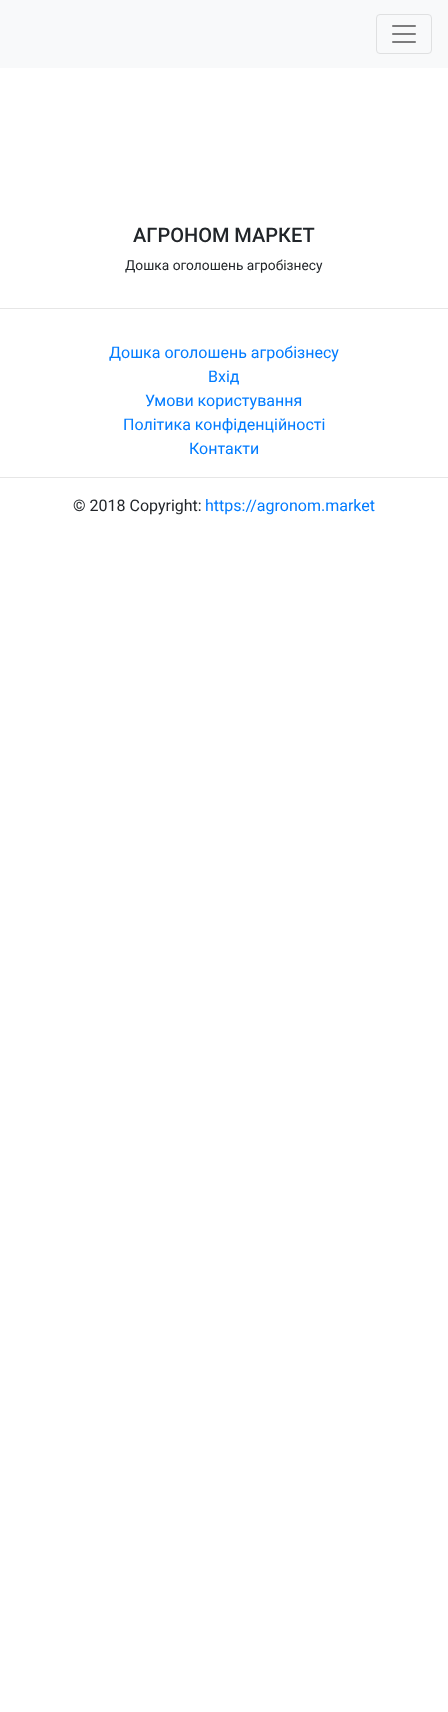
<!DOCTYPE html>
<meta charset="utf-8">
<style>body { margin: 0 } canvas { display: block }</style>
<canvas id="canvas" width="448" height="1712"></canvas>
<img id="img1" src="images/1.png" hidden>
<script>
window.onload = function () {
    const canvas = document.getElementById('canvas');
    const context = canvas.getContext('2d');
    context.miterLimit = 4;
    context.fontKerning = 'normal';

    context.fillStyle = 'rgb(255, 255, 255)';
    context.fillRect(0, 0, 448, 1712);
    context.fillStyle = 'rgb(248, 249, 250)';
    context.fillRect(0, 0, 448, 68);
    context.beginPath();
    context.roundRect(376.5, 14.5, 55, 39, 3.5);
    context.strokeStyle = 'rgb(223, 224, 225)';
    context.stroke();
    context.drawImage(document.getElementById('img1'), 392, 25, 24, 18);
    context.fillStyle = 'rgb(230, 230, 230)';
    context.fillRect(0, 308, 448, 1);
    context.fillRect(0, 477, 448, 1);
    context.font = '500 20px Roboto';
    context.fillStyle = 'rgb(33, 37, 41)';
    context.fillText('АГРОНОМ МАРКЕТ', 133, 242);
    context.font = '13.75px Roboto';
    context.fillText('Дошка оголошень агробізнесу', 125, 270);
    context.font = '16px Roboto';
    context.fillStyle = 'rgb(0, 123, 255)';
    context.fillText('Дошка оголошень агробізнесу', 109, 358);
    context.fillText('Вхід', 208, 382);
    context.fillText('Умови користування', 145, 406);
    context.fillText('Політика конфіденційності', 123, 430);
    context.fillText('Контакти', 189, 454);
    context.fillStyle = 'rgb(33, 37, 41)';
    context.fillText('© 2018 Copyright:', 73, 511);
    context.fillStyle = 'rgb(0, 123, 255)';
    context.fillText('https://agronom.market', 205, 511);
};
</script>
